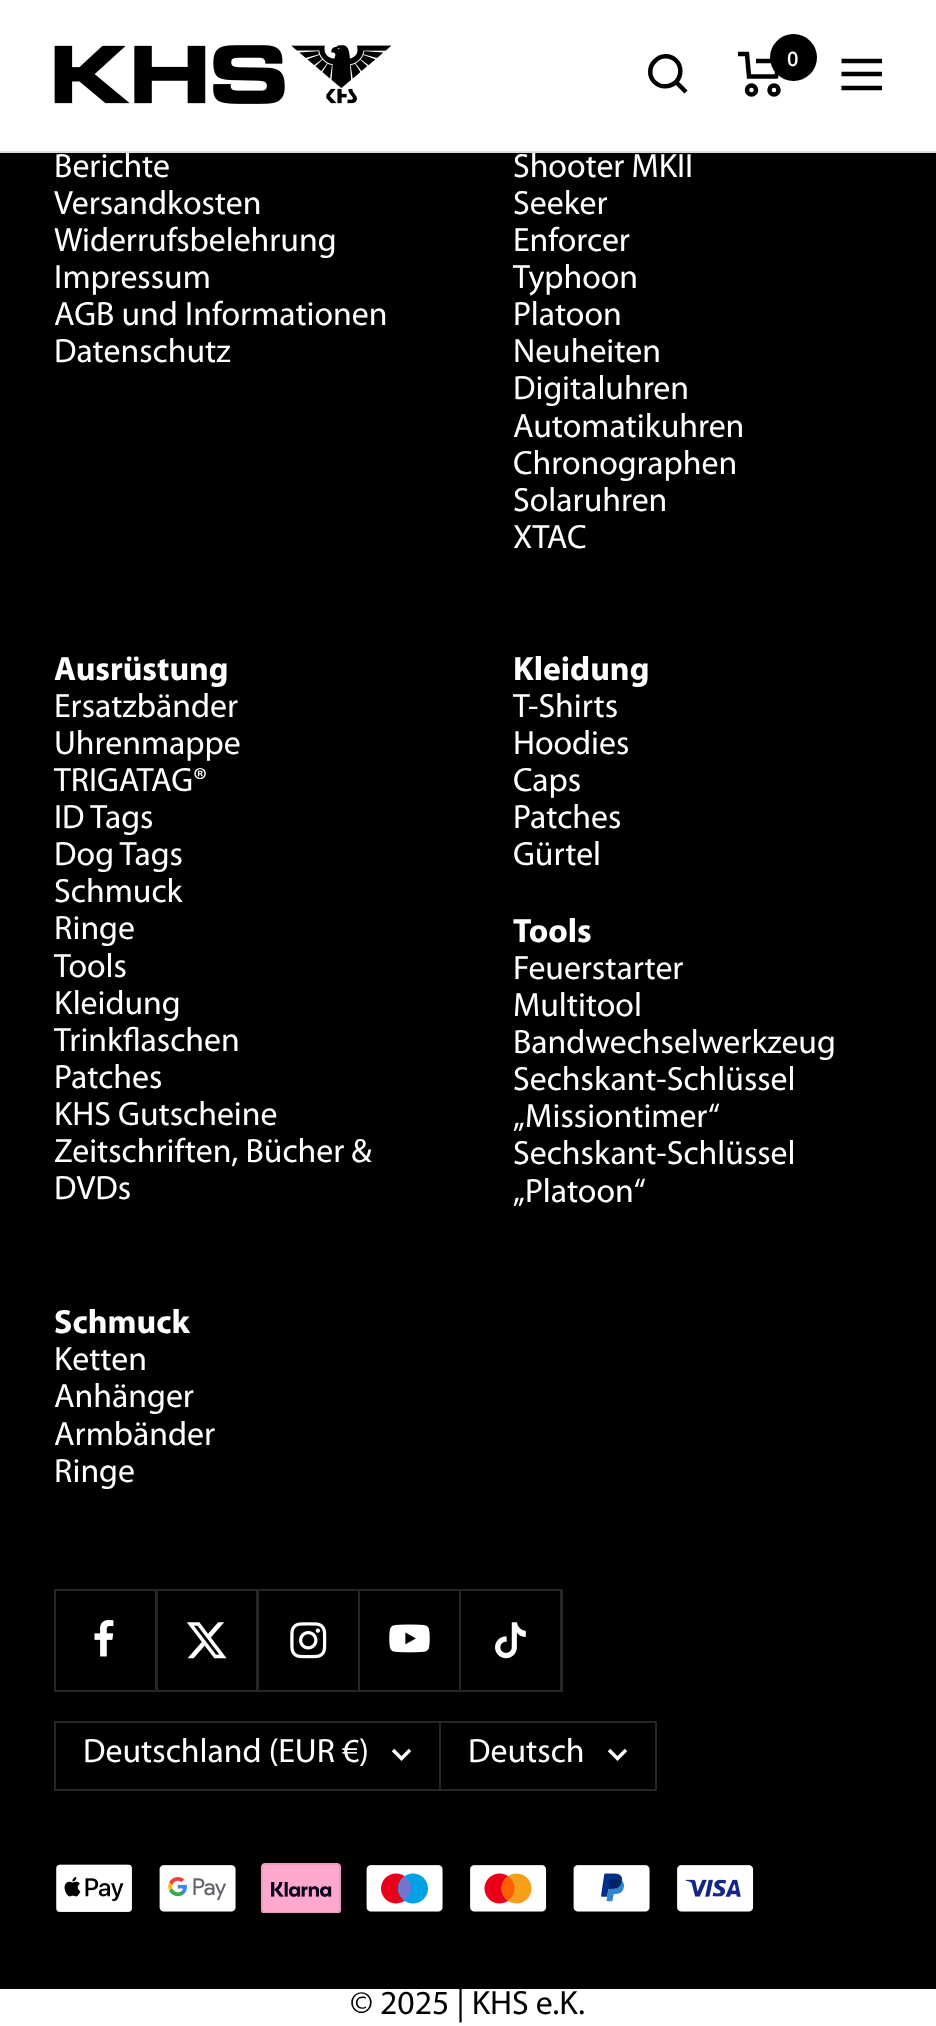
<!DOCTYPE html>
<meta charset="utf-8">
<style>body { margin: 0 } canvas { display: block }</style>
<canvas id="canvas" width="936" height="2026"></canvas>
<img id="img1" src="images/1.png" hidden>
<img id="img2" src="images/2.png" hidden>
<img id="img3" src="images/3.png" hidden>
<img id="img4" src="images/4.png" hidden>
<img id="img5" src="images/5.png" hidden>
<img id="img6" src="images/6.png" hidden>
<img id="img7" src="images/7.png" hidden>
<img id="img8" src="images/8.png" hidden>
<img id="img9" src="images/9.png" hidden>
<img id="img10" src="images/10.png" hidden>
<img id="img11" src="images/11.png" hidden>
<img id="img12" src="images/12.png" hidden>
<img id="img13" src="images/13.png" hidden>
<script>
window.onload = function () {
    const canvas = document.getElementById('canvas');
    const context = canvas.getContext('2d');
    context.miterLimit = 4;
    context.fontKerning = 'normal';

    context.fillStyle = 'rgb(0, 0, 0)';
    context.fillRect(0, 0, 936, 2026);
    context.fillStyle = 'rgb(255, 255, 255)';
    context.fillRect(0, 0, 936, 151);
    context.fillStyle = 'rgb(220, 220, 220)';
    context.fillRect(0, 151, 936, 2);
    context.drawImage(document.getElementById('img1'), 54, 45, 338, 59);
    context.beginPath();
    context.moveTo(676, 82);
    context.bezierCurveTo(681.5, 76, 682, 66.5, 676, 60.5);
    context.bezierCurveTo(670, 54.5, 660.5, 55, 655, 61);
    context.bezierCurveTo(649, 66.5, 648.5, 76, 654.5, 82);
    context.bezierCurveTo(660.5, 88, 670, 87.5, 676, 82);
    context.closePath();
    context.moveTo(676, 82);
    context.lineTo(686, 92);
    context.strokeStyle = 'rgb(0, 0, 0)';
    context.lineWidth = 4.5;
    context.stroke();
    context.beginPath();
    context.moveTo(738, 54);
    context.lineTo(747, 54);
    context.lineTo(749, 76.5);
    context.lineTo(776, 76.5);
    context.lineTo(781, 61);
    context.lineTo(756, 61);
    context.stroke();
    context.beginPath();
    context.arc(751.5, 90, 4.5, 0, 2 * Math.PI);
    context.stroke();
    context.beginPath();
    context.arc(774, 90, 4.5, 0, 2 * Math.PI);
    context.stroke();
    context.fillStyle = 'rgb(0, 0, 0)';
    context.beginPath();
    context.arc(793.5, 57.5, 23.5, 0, 2 * Math.PI);
    context.fill();
    context.beginPath();
    context.moveTo(841.5, 61);
    context.lineTo(882, 61);
    context.moveTo(841.5, 88);
    context.lineTo(882, 88);
    context.closePath();
    context.moveTo(841.5, 74);
    context.lineTo(882, 74);
    context.closePath();
    context.stroke();
    context.fillStyle = 'rgb(38, 38, 38)';
    context.beginPath();
    context.moveTo(56, 1690);
    context.lineTo(56, 1692);
    context.lineTo(158, 1692);
    context.lineTo(158, 1591);
    context.lineTo(155, 1591);
    context.lineTo(155, 1690);
    context.closePath();
    context.fill();
    context.fillRect(54, 1690, 2, 2);
    context.beginPath();
    context.moveTo(56, 1690);
    context.lineTo(158, 1690);
    context.lineTo(158, 1589);
    context.lineTo(155, 1589);
    context.lineTo(155, 1690);
    context.closePath();
    context.fill();
    context.fillRect(54, 1589, 101, 2);
    context.fillRect(54, 1589, 2, 101);
    context.drawImage(document.getElementById('img2'), 94, 1620, 20, 37);
    context.beginPath();
    context.moveTo(158, 1690);
    context.lineTo(158, 1692);
    context.lineTo(259, 1692);
    context.lineTo(259, 1591);
    context.lineTo(256, 1591);
    context.lineTo(256, 1690);
    context.closePath();
    context.fill();
    context.beginPath();
    context.moveTo(158, 1690);
    context.lineTo(259, 1690);
    context.lineTo(259, 1589);
    context.lineTo(256, 1589);
    context.lineTo(256, 1690);
    context.closePath();
    context.fill();
    context.fillRect(155, 1589, 203, 2);
    context.drawImage(document.getElementById('img3'), 186, 1622, 41, 37);
    context.beginPath();
    context.moveTo(259, 1690);
    context.lineTo(259, 1692);
    context.lineTo(360, 1692);
    context.lineTo(360, 1591);
    context.lineTo(358, 1591);
    context.lineTo(358, 1690);
    context.closePath();
    context.fill();
    context.beginPath();
    context.moveTo(259, 1690);
    context.lineTo(360, 1690);
    context.lineTo(360, 1589);
    context.lineTo(358, 1589);
    context.lineTo(358, 1690);
    context.closePath();
    context.fill();
    context.drawImage(document.getElementById('img4'), 290, 1622, 37, 37);
    context.beginPath();
    context.moveTo(360, 1690);
    context.lineTo(360, 1692);
    context.lineTo(461, 1692);
    context.lineTo(461, 1591);
    context.lineTo(459, 1591);
    context.lineTo(459, 1690);
    context.closePath();
    context.fill();
    context.beginPath();
    context.moveTo(360, 1690);
    context.lineTo(461, 1690);
    context.lineTo(461, 1589);
    context.lineTo(459, 1589);
    context.lineTo(459, 1690);
    context.closePath();
    context.fill();
    context.fillRect(358, 1589, 202, 2);
    context.drawImage(document.getElementById('img5'), 389, 1624, 41, 29);
    context.beginPath();
    context.moveTo(461, 1690);
    context.lineTo(461, 1692);
    context.lineTo(563, 1692);
    context.lineTo(563, 1591);
    context.lineTo(560, 1591);
    context.lineTo(560, 1690);
    context.closePath();
    context.fill();
    context.beginPath();
    context.moveTo(461, 1690);
    context.lineTo(563, 1690);
    context.lineTo(563, 1589);
    context.lineTo(560, 1589);
    context.lineTo(560, 1690);
    context.closePath();
    context.fill();
    context.drawImage(document.getElementById('img6'), 495, 1622, 31, 37);
    context.strokeStyle = 'rgb(38, 38, 38)';
    context.lineWidth = 2;
    context.strokeRect(55, 1722, 385, 68);
    context.beginPath();
    context.moveTo(393, 1750);
    context.lineTo(401.5, 1758.5);
    context.lineTo(410, 1750);
    context.strokeStyle = 'rgb(255, 255, 255)';
    context.lineWidth = 3.4;
    context.stroke();
    context.strokeStyle = 'rgb(38, 38, 38)';
    context.lineWidth = 2;
    context.strokeRect(440, 1722, 216, 68);
    context.beginPath();
    context.moveTo(609, 1750);
    context.lineTo(617.5, 1758.5);
    context.lineTo(626, 1750);
    context.strokeStyle = 'rgb(255, 255, 255)';
    context.lineWidth = 3.4;
    context.stroke();
    context.drawImage(document.getElementById('img7'), 56, 1864, 76, 48);
    context.drawImage(document.getElementById('img8'), 159, 1865, 77, 47);
    context.drawImage(document.getElementById('img9'), 261, 1863, 80, 50);
    context.drawImage(document.getElementById('img10'), 366, 1865, 77, 47);
    context.drawImage(document.getElementById('img11'), 470, 1865, 77, 47);
    context.drawImage(document.getElementById('img12'), 573, 1865, 77, 47);
    context.drawImage(document.getElementById('img13'), 677, 1865, 77, 47);
    context.fillStyle = 'rgb(255, 255, 255)';
    context.fillRect(0, 1989, 936, 37);
    context.font = '600 20px Open Sans';
    context.fillText('0', 787, 66);
    context.font = '33.75px Myriad';
    context.fillText('Berichte', 54, 177);
    context.fillText('Versandkosten', 54, 214);
    context.fillText('Widerrufsbelehrung', 54, 251);
    context.fillText('Impressum', 54, 288);
    context.fillText('AGB und Informationen', 54, 325);
    context.fillText('Datenschutz', 54, 362);
    context.fillText('Shooter MKII', 513, 177);
    context.fillText('Seeker', 513, 214);
    context.fillText('Enforcer', 513, 251);
    context.fillText('Typhoon', 513, 288);
    context.fillText('Platoon', 513, 325);
    context.fillText('Neuheiten', 513, 362);
    context.fillText('Digitaluhren', 513, 399);
    context.fillText('Automatikuhren', 513, 437);
    context.fillText('Chronographen', 513, 474);
    context.fillText('Solaruhren', 513, 511);
    context.fillText('XTAC', 513, 548);
    context.font = 'bold 33.75px Myriad';
    context.fillText('Ausrüstung', 54, 680);
    context.font = '33.75px Myriad';
    context.fillText('Ersatzbänder', 54, 717);
    context.fillText('Uhrenmappe', 54, 754);
    context.fillText('TRIGATAG®', 54, 791);
    context.fillText('ID Tags', 54, 828);
    context.fillText('Dog Tags', 54, 865);
    context.fillText('Schmuck', 54, 902);
    context.fillText('Ringe', 54, 939);
    context.fillText('Tools', 54, 977);
    context.fillText('Kleidung', 54, 1014);
    context.fillText('Trinkflaschen', 54, 1051);
    context.fillText('Patches', 54, 1088);
    context.fillText('KHS Gutscheine', 54, 1125);
    context.fillText('Zeitschriften, Bücher &', 54, 1162);
    context.fillText('DVDs', 54, 1199);
    context.font = 'bold 33.75px Myriad';
    context.fillText('Kleidung', 513, 680);
    context.font = '33.75px Myriad';
    context.fillText('T-Shirts', 513, 717);
    context.fillText('Hoodies', 513, 754);
    context.fillText('Caps', 513, 791);
    context.fillText('Patches', 513, 828);
    context.fillText('Gürtel', 513, 865);
    context.font = 'bold 33.75px Myriad';
    context.fillText('Tools', 513, 942);
    context.font = '33.75px Myriad';
    context.fillText('Feuerstarter', 513, 979);
    context.fillText('Multitool', 513, 1016);
    context.fillText('Bandwechselwerkzeug', 513, 1053);
    context.fillText('Sechskant-Schlüssel', 513, 1090);
    context.fillText('„Missiontimer“', 513, 1127);
    context.fillText('Sechskant-Schlüssel', 513, 1164);
    context.fillText('„Platoon“', 513, 1202);
    context.font = 'bold 33.75px Myriad';
    context.fillText('Schmuck', 54, 1333);
    context.font = '33.75px Myriad';
    context.fillText('Ketten', 54, 1370);
    context.fillText('Anhänger', 54, 1407);
    context.fillText('Armbänder', 54, 1445);
    context.fillText('Ringe', 54, 1482);
    context.fillText('Deutschland (EUR €)', 83, 1762);
    context.fillText('Deutsch', 468, 1762);
    context.fillStyle = 'rgb(0, 0, 0)';
    context.fillText('© 2025 | KHS e.K.', 350, 2014);
};
</script>
